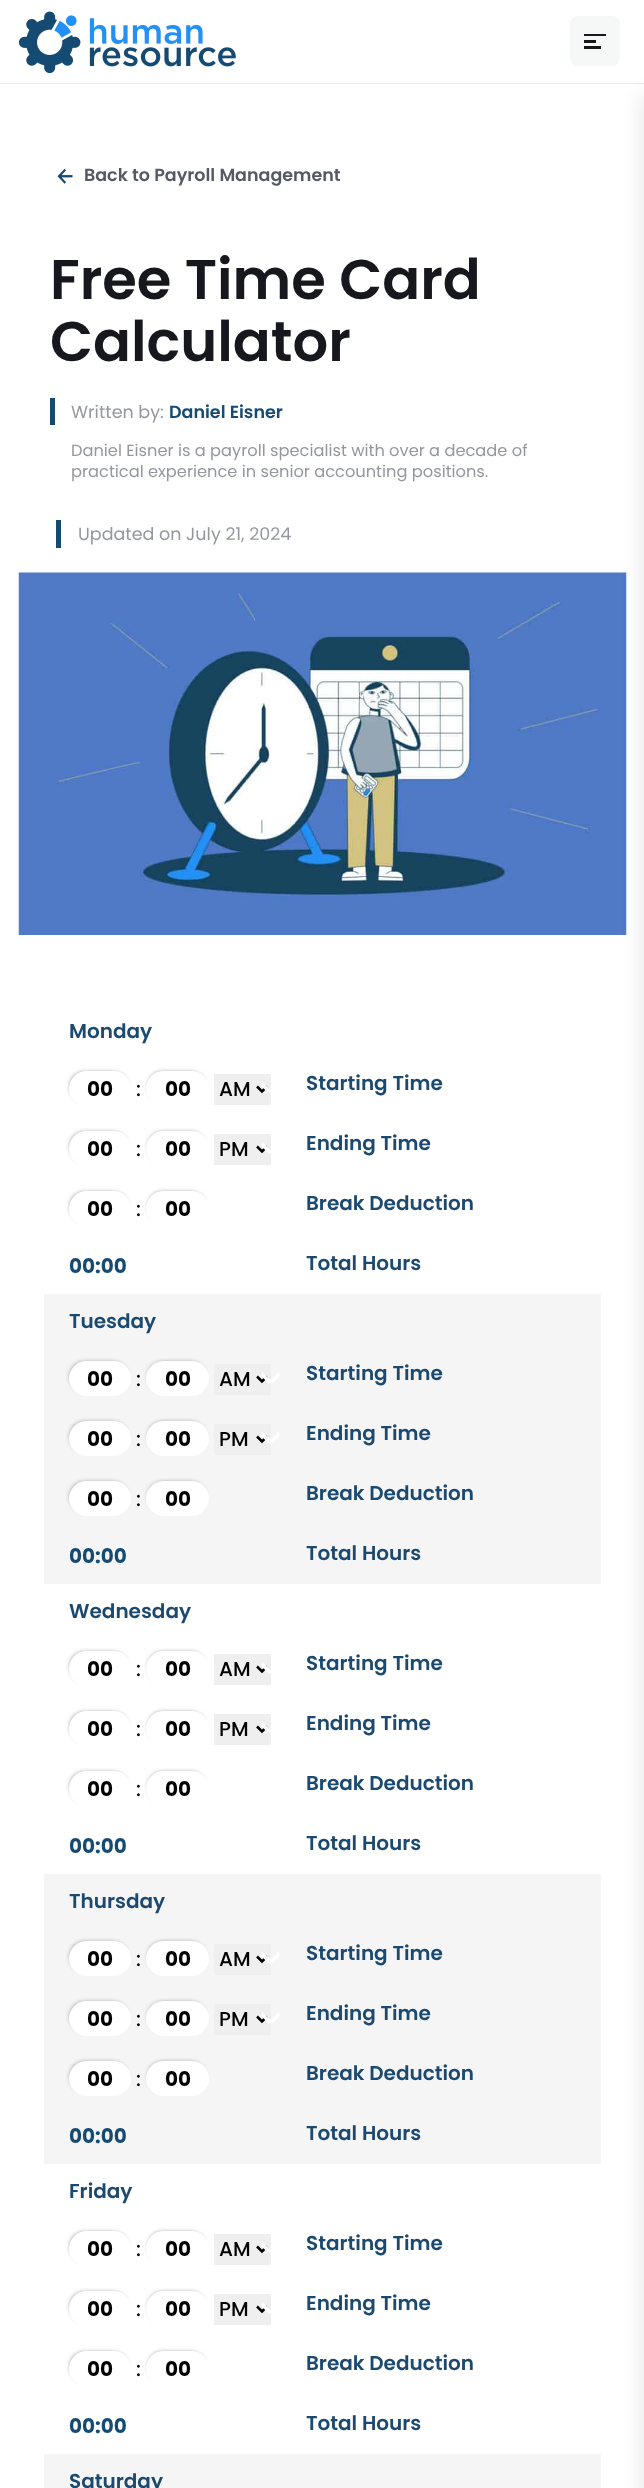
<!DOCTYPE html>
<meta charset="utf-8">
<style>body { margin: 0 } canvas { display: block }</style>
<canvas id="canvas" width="644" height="2488"></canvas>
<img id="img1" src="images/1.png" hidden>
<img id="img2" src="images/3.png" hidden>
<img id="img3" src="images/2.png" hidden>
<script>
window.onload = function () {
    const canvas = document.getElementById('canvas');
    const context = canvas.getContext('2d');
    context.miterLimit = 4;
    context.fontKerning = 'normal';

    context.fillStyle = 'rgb(255, 255, 255)';
    context.fillRect(0, 0, 644, 2488);
    context.fillStyle = 'rgb(234, 234, 236)';
    context.fillRect(0, 83, 644, 1);
    context.drawImage(document.getElementById('img1'), 19, 11, 217, 63);
    context.fillStyle = 'rgb(246, 247, 247)';
    context.beginPath();
    context.roundRect(570, 16, 50, 50, 8);
    context.fill();
    context.fillStyle = 'rgb(23, 24, 30)';
    context.fillRect(584, 34, 22, 2);
    context.fillRect(584, 40, 12, 3);
    context.fillRect(584, 46, 17, 3);
    context.drawImage(document.getElementById('img2'), 18, 572, 609, 363);
    context.fillStyle = 'rgba(0, 0, 0, 0.08)';
    context.filter = 'blur(9.5px)';
    context.beginPath();
    context.rect(640, 94, 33, 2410);
    context.fill();
    context.filter = 'none';
    context.drawImage(document.getElementById('img3'), 57, 168, 16, 16);
    context.fillStyle = 'rgb(21, 74, 114)';
    context.fillRect(50, 398, 5, 27);
    context.fillRect(56, 520, 5, 28);
    context.fillStyle = 'rgb(78, 78, 78)';
    context.filter = 'blur(2.5px)';
    context.beginPath();
    context.roundRect(71, 1073, 55, 27, 13.5);
    context.fill();
    context.filter = 'none';
    context.fillStyle = 'rgb(255, 255, 255)';
    context.beginPath();
    context.roundRect(69, 1071, 62, 35, 17.5);
    context.fill();
    context.fillStyle = 'rgb(78, 78, 78)';
    context.filter = 'blur(2.5px)';
    context.beginPath();
    context.roundRect(149, 1073, 55, 27, 13.5);
    context.fill();
    context.filter = 'none';
    context.fillStyle = 'rgb(255, 255, 255)';
    context.beginPath();
    context.roundRect(146, 1071, 63, 35, 17.5);
    context.fill();
    context.fillStyle = 'rgb(239, 239, 239)';
    context.fillRect(214, 1074, 57, 31);
    context.beginPath();
    context.moveTo(257, 1086.5);
    context.lineTo(262, 1091.5);
    context.lineTo(267, 1086.5);
    context.strokeStyle = 'rgb(0, 0, 0)';
    context.lineWidth = 2.5;
    context.stroke();
    context.fillStyle = 'rgb(255, 255, 255)';
    context.beginPath();
    context.moveTo(268, 1092.5);
    context.lineTo(262.5, 1087.5);
    context.bezierCurveTo(261, 1086, 261, 1083.5, 262.5, 1082);
    context.lineTo(268, 1077);
    context.bezierCurveTo(269.5, 1075.5, 271.5, 1075.5, 273, 1077);
    context.lineTo(278.5, 1082);
    context.bezierCurveTo(280, 1083.5, 280, 1086, 278.5, 1087.5);
    context.lineTo(273, 1092.5);
    context.bezierCurveTo(271.5, 1094, 269.5, 1094, 268, 1092.5);
    context.closePath();
    context.moveTo(270.5, 1090);
    context.lineTo(262.5, 1082);
    context.bezierCurveTo(271, 1073.5, 270, 1073.5, 278.5, 1082);
    context.lineTo(276, 1085);
    context.closePath();
    context.fill('evenodd');
    context.fillStyle = 'rgb(78, 78, 78)';
    context.filter = 'blur(2.5px)';
    context.beginPath();
    context.roundRect(71, 1133, 55, 27, 13.5);
    context.fill();
    context.filter = 'none';
    context.fillStyle = 'rgb(255, 255, 255)';
    context.beginPath();
    context.roundRect(69, 1131, 62, 35, 17.5);
    context.fill();
    context.fillStyle = 'rgb(78, 78, 78)';
    context.filter = 'blur(2.5px)';
    context.beginPath();
    context.roundRect(149, 1133, 55, 27, 13.5);
    context.fill();
    context.filter = 'none';
    context.fillStyle = 'rgb(255, 255, 255)';
    context.beginPath();
    context.roundRect(146, 1131, 63, 35, 17.5);
    context.fill();
    context.fillStyle = 'rgb(239, 239, 239)';
    context.fillRect(214, 1134, 57, 31);
    context.beginPath();
    context.moveTo(257, 1146.5);
    context.lineTo(262, 1151.5);
    context.lineTo(267, 1146.5);
    context.stroke();
    context.fillStyle = 'rgb(255, 255, 255)';
    context.beginPath();
    context.moveTo(268, 1152.5);
    context.lineTo(262.5, 1147.5);
    context.bezierCurveTo(261, 1146, 261, 1143.5, 262.5, 1142);
    context.lineTo(268, 1137);
    context.bezierCurveTo(269.5, 1135.5, 271.5, 1135.5, 273, 1137);
    context.lineTo(278.5, 1142);
    context.bezierCurveTo(280, 1143.5, 280, 1146, 278.5, 1147.5);
    context.lineTo(273, 1152.5);
    context.bezierCurveTo(271.5, 1154, 269.5, 1154, 268, 1152.5);
    context.closePath();
    context.moveTo(270.5, 1150);
    context.lineTo(262.5, 1142);
    context.bezierCurveTo(271, 1133.5, 270, 1133.5, 278.5, 1142);
    context.lineTo(276, 1145);
    context.closePath();
    context.fill('evenodd');
    context.fillStyle = 'rgb(78, 78, 78)';
    context.filter = 'blur(2.5px)';
    context.beginPath();
    context.roundRect(71, 1193, 55, 27, 13.5);
    context.fill();
    context.filter = 'none';
    context.fillStyle = 'rgb(255, 255, 255)';
    context.beginPath();
    context.roundRect(69, 1191, 62, 35, 17.5);
    context.fill();
    context.fillStyle = 'rgb(78, 78, 78)';
    context.filter = 'blur(2.5px)';
    context.beginPath();
    context.roundRect(149, 1193, 55, 27, 13.5);
    context.fill();
    context.filter = 'none';
    context.fillStyle = 'rgb(255, 255, 255)';
    context.beginPath();
    context.roundRect(146, 1191, 63, 35, 17.5);
    context.fill();
    context.fillStyle = 'rgb(245, 245, 245)';
    context.fillRect(44, 1294, 557, 290);
    context.fillStyle = 'rgb(78, 78, 78)';
    context.filter = 'blur(2.5px)';
    context.beginPath();
    context.roundRect(71, 1363, 55, 27, 13.5);
    context.fill();
    context.filter = 'none';
    context.fillStyle = 'rgb(255, 255, 255)';
    context.beginPath();
    context.roundRect(69, 1361, 62, 35, 17.5);
    context.fill();
    context.fillStyle = 'rgb(78, 78, 78)';
    context.filter = 'blur(2.5px)';
    context.beginPath();
    context.roundRect(149, 1363, 55, 27, 13.5);
    context.fill();
    context.filter = 'none';
    context.fillStyle = 'rgb(255, 255, 255)';
    context.beginPath();
    context.roundRect(146, 1361, 63, 35, 17.5);
    context.fill();
    context.fillStyle = 'rgb(239, 239, 239)';
    context.fillRect(214, 1364, 57, 31);
    context.beginPath();
    context.moveTo(257, 1376.5);
    context.lineTo(262, 1381.5);
    context.lineTo(267, 1376.5);
    context.stroke();
    context.fillStyle = 'rgb(255, 255, 255)';
    context.beginPath();
    context.moveTo(268, 1382.5);
    context.lineTo(262.5, 1377.5);
    context.bezierCurveTo(261, 1376, 261, 1373.5, 262.5, 1372);
    context.lineTo(268, 1367);
    context.bezierCurveTo(269.5, 1365.5, 271.5, 1365.5, 273, 1367);
    context.lineTo(278.5, 1372);
    context.bezierCurveTo(280, 1373.5, 280, 1376, 278.5, 1377.5);
    context.lineTo(273, 1382.5);
    context.bezierCurveTo(271.5, 1384, 269.5, 1384, 268, 1382.5);
    context.closePath();
    context.moveTo(270.5, 1380);
    context.lineTo(262.5, 1372);
    context.bezierCurveTo(271, 1363.5, 270, 1363.5, 278.5, 1372);
    context.lineTo(276, 1375);
    context.closePath();
    context.fill('evenodd');
    context.fillStyle = 'rgb(78, 78, 78)';
    context.filter = 'blur(2.5px)';
    context.beginPath();
    context.roundRect(71, 1423, 55, 27, 13.5);
    context.fill();
    context.filter = 'none';
    context.fillStyle = 'rgb(255, 255, 255)';
    context.beginPath();
    context.roundRect(69, 1421, 62, 35, 17.5);
    context.fill();
    context.fillStyle = 'rgb(78, 78, 78)';
    context.filter = 'blur(2.5px)';
    context.beginPath();
    context.roundRect(149, 1423, 55, 27, 13.5);
    context.fill();
    context.filter = 'none';
    context.fillStyle = 'rgb(255, 255, 255)';
    context.beginPath();
    context.roundRect(146, 1421, 63, 35, 17.5);
    context.fill();
    context.fillStyle = 'rgb(239, 239, 239)';
    context.fillRect(214, 1424, 57, 31);
    context.beginPath();
    context.moveTo(257, 1436.5);
    context.lineTo(262, 1441.5);
    context.lineTo(267, 1436.5);
    context.stroke();
    context.fillStyle = 'rgb(255, 255, 255)';
    context.beginPath();
    context.moveTo(268, 1442.5);
    context.lineTo(262.5, 1437.5);
    context.bezierCurveTo(261, 1436, 261, 1433.5, 262.5, 1432);
    context.lineTo(268, 1427);
    context.bezierCurveTo(269.5, 1425.5, 271.5, 1425.5, 273, 1427);
    context.lineTo(278.5, 1432);
    context.bezierCurveTo(280, 1433.5, 280, 1436, 278.5, 1437.5);
    context.lineTo(273, 1442.5);
    context.bezierCurveTo(271.5, 1444, 269.5, 1444, 268, 1442.5);
    context.closePath();
    context.moveTo(270.5, 1440);
    context.lineTo(262.5, 1432);
    context.bezierCurveTo(271, 1423.5, 270, 1423.5, 278.5, 1432);
    context.lineTo(276, 1435);
    context.closePath();
    context.fill('evenodd');
    context.fillStyle = 'rgb(78, 78, 78)';
    context.filter = 'blur(2.5px)';
    context.beginPath();
    context.roundRect(71, 1483, 55, 27, 13.5);
    context.fill();
    context.filter = 'none';
    context.fillStyle = 'rgb(255, 255, 255)';
    context.beginPath();
    context.roundRect(69, 1481, 62, 35, 17.5);
    context.fill();
    context.fillStyle = 'rgb(78, 78, 78)';
    context.filter = 'blur(2.5px)';
    context.beginPath();
    context.roundRect(149, 1483, 55, 27, 13.5);
    context.fill();
    context.filter = 'none';
    context.fillStyle = 'rgb(255, 255, 255)';
    context.beginPath();
    context.roundRect(146, 1481, 63, 35, 17.5);
    context.fill();
    context.fillStyle = 'rgb(78, 78, 78)';
    context.filter = 'blur(2.5px)';
    context.beginPath();
    context.roundRect(71, 1653, 55, 27, 13.5);
    context.fill();
    context.filter = 'none';
    context.fillStyle = 'rgb(255, 255, 255)';
    context.beginPath();
    context.roundRect(69, 1651, 62, 35, 17.5);
    context.fill();
    context.fillStyle = 'rgb(78, 78, 78)';
    context.filter = 'blur(2.5px)';
    context.beginPath();
    context.roundRect(149, 1653, 55, 27, 13.5);
    context.fill();
    context.filter = 'none';
    context.fillStyle = 'rgb(255, 255, 255)';
    context.beginPath();
    context.roundRect(146, 1651, 63, 35, 17.5);
    context.fill();
    context.fillStyle = 'rgb(239, 239, 239)';
    context.fillRect(214, 1654, 57, 31);
    context.beginPath();
    context.moveTo(257, 1666.5);
    context.lineTo(262, 1671.5);
    context.lineTo(267, 1666.5);
    context.stroke();
    context.fillStyle = 'rgb(255, 255, 255)';
    context.beginPath();
    context.moveTo(268, 1672.5);
    context.lineTo(262.5, 1667.5);
    context.bezierCurveTo(261, 1666, 261, 1663.5, 262.5, 1662);
    context.lineTo(268, 1657);
    context.bezierCurveTo(269.5, 1655.5, 271.5, 1655.5, 273, 1657);
    context.lineTo(278.5, 1662);
    context.bezierCurveTo(280, 1663.5, 280, 1666, 278.5, 1667.5);
    context.lineTo(273, 1672.5);
    context.bezierCurveTo(271.5, 1674, 269.5, 1674, 268, 1672.5);
    context.closePath();
    context.moveTo(270.5, 1670);
    context.lineTo(262.5, 1662);
    context.bezierCurveTo(271, 1653.5, 270, 1653.5, 278.5, 1662);
    context.lineTo(276, 1665);
    context.closePath();
    context.fill('evenodd');
    context.fillStyle = 'rgb(78, 78, 78)';
    context.filter = 'blur(2.5px)';
    context.beginPath();
    context.roundRect(71, 1713, 55, 27, 13.5);
    context.fill();
    context.filter = 'none';
    context.fillStyle = 'rgb(255, 255, 255)';
    context.beginPath();
    context.roundRect(69, 1711, 62, 35, 17.5);
    context.fill();
    context.fillStyle = 'rgb(78, 78, 78)';
    context.filter = 'blur(2.5px)';
    context.beginPath();
    context.roundRect(149, 1713, 55, 27, 13.5);
    context.fill();
    context.filter = 'none';
    context.fillStyle = 'rgb(255, 255, 255)';
    context.beginPath();
    context.roundRect(146, 1711, 63, 35, 17.5);
    context.fill();
    context.fillStyle = 'rgb(239, 239, 239)';
    context.fillRect(214, 1714, 57, 31);
    context.beginPath();
    context.moveTo(257, 1726.5);
    context.lineTo(262, 1731.5);
    context.lineTo(267, 1726.5);
    context.stroke();
    context.fillStyle = 'rgb(255, 255, 255)';
    context.beginPath();
    context.moveTo(268, 1732.5);
    context.lineTo(262.5, 1727.5);
    context.bezierCurveTo(261, 1726, 261, 1723.5, 262.5, 1722);
    context.lineTo(268, 1717);
    context.bezierCurveTo(269.5, 1715.5, 271.5, 1715.5, 273, 1717);
    context.lineTo(278.5, 1722);
    context.bezierCurveTo(280, 1723.5, 280, 1726, 278.5, 1727.5);
    context.lineTo(273, 1732.5);
    context.bezierCurveTo(271.5, 1734, 269.5, 1734, 268, 1732.5);
    context.closePath();
    context.moveTo(270.5, 1730);
    context.lineTo(262.5, 1722);
    context.bezierCurveTo(271, 1713.5, 270, 1713.5, 278.5, 1722);
    context.lineTo(276, 1725);
    context.closePath();
    context.fill('evenodd');
    context.fillStyle = 'rgb(78, 78, 78)';
    context.filter = 'blur(2.5px)';
    context.beginPath();
    context.roundRect(71, 1773, 55, 27, 13.5);
    context.fill();
    context.filter = 'none';
    context.fillStyle = 'rgb(255, 255, 255)';
    context.beginPath();
    context.roundRect(69, 1771, 62, 35, 17.5);
    context.fill();
    context.fillStyle = 'rgb(78, 78, 78)';
    context.filter = 'blur(2.5px)';
    context.beginPath();
    context.roundRect(149, 1773, 55, 27, 13.5);
    context.fill();
    context.filter = 'none';
    context.fillStyle = 'rgb(255, 255, 255)';
    context.beginPath();
    context.roundRect(146, 1771, 63, 35, 17.5);
    context.fill();
    context.fillStyle = 'rgb(245, 245, 245)';
    context.fillRect(44, 1874, 557, 290);
    context.fillStyle = 'rgb(78, 78, 78)';
    context.filter = 'blur(2.5px)';
    context.beginPath();
    context.roundRect(71, 1943, 55, 27, 13.5);
    context.fill();
    context.filter = 'none';
    context.fillStyle = 'rgb(255, 255, 255)';
    context.beginPath();
    context.roundRect(69, 1941, 62, 35, 17.5);
    context.fill();
    context.fillStyle = 'rgb(78, 78, 78)';
    context.filter = 'blur(2.5px)';
    context.beginPath();
    context.roundRect(149, 1943, 55, 27, 13.5);
    context.fill();
    context.filter = 'none';
    context.fillStyle = 'rgb(255, 255, 255)';
    context.beginPath();
    context.roundRect(146, 1941, 63, 35, 17.5);
    context.fill();
    context.fillStyle = 'rgb(239, 239, 239)';
    context.fillRect(214, 1944, 57, 31);
    context.beginPath();
    context.moveTo(257, 1956.5);
    context.lineTo(262, 1961.5);
    context.lineTo(267, 1956.5);
    context.stroke();
    context.fillStyle = 'rgb(255, 255, 255)';
    context.beginPath();
    context.moveTo(268, 1962.5);
    context.lineTo(262.5, 1957.5);
    context.bezierCurveTo(261, 1956, 261, 1953.5, 262.5, 1952);
    context.lineTo(268, 1947);
    context.bezierCurveTo(269.5, 1945.5, 271.5, 1945.5, 273, 1947);
    context.lineTo(278.5, 1952);
    context.bezierCurveTo(280, 1953.5, 280, 1956, 278.5, 1957.5);
    context.lineTo(273, 1962.5);
    context.bezierCurveTo(271.5, 1964, 269.5, 1964, 268, 1962.5);
    context.closePath();
    context.moveTo(270.5, 1960);
    context.lineTo(262.5, 1952);
    context.bezierCurveTo(271, 1943.5, 270, 1943.5, 278.5, 1952);
    context.lineTo(276, 1955);
    context.closePath();
    context.fill('evenodd');
    context.fillStyle = 'rgb(78, 78, 78)';
    context.filter = 'blur(2.5px)';
    context.beginPath();
    context.roundRect(71, 2003, 55, 27, 13.5);
    context.fill();
    context.filter = 'none';
    context.fillStyle = 'rgb(255, 255, 255)';
    context.beginPath();
    context.roundRect(69, 2001, 62, 35, 17.5);
    context.fill();
    context.fillStyle = 'rgb(78, 78, 78)';
    context.filter = 'blur(2.5px)';
    context.beginPath();
    context.roundRect(149, 2003, 55, 27, 13.5);
    context.fill();
    context.filter = 'none';
    context.fillStyle = 'rgb(255, 255, 255)';
    context.beginPath();
    context.roundRect(146, 2001, 63, 35, 17.5);
    context.fill();
    context.fillStyle = 'rgb(239, 239, 239)';
    context.fillRect(214, 2004, 57, 31);
    context.beginPath();
    context.moveTo(257, 2016.5);
    context.lineTo(262, 2021.5);
    context.lineTo(267, 2016.5);
    context.stroke();
    context.fillStyle = 'rgb(255, 255, 255)';
    context.beginPath();
    context.moveTo(268, 2022.5);
    context.lineTo(262.5, 2017.5);
    context.bezierCurveTo(261, 2016, 261, 2013.5, 262.5, 2012);
    context.lineTo(268, 2007);
    context.bezierCurveTo(269.5, 2005.5, 271.5, 2005.5, 273, 2007);
    context.lineTo(278.5, 2012);
    context.bezierCurveTo(280, 2013.5, 280, 2016, 278.5, 2017.5);
    context.lineTo(273, 2022.5);
    context.bezierCurveTo(271.5, 2024, 269.5, 2024, 268, 2022.5);
    context.closePath();
    context.moveTo(270.5, 2020);
    context.lineTo(262.5, 2012);
    context.bezierCurveTo(271, 2003.5, 270, 2003.5, 278.5, 2012);
    context.lineTo(276, 2015);
    context.closePath();
    context.fill('evenodd');
    context.fillStyle = 'rgb(78, 78, 78)';
    context.filter = 'blur(2.5px)';
    context.beginPath();
    context.roundRect(71, 2063, 55, 27, 13.5);
    context.fill();
    context.filter = 'none';
    context.fillStyle = 'rgb(255, 255, 255)';
    context.beginPath();
    context.roundRect(69, 2061, 62, 35, 17.5);
    context.fill();
    context.fillStyle = 'rgb(78, 78, 78)';
    context.filter = 'blur(2.5px)';
    context.beginPath();
    context.roundRect(149, 2063, 55, 27, 13.5);
    context.fill();
    context.filter = 'none';
    context.fillStyle = 'rgb(255, 255, 255)';
    context.beginPath();
    context.roundRect(146, 2061, 63, 35, 17.5);
    context.fill();
    context.fillStyle = 'rgb(78, 78, 78)';
    context.filter = 'blur(2.5px)';
    context.beginPath();
    context.roundRect(71, 2233, 55, 27, 13.5);
    context.fill();
    context.filter = 'none';
    context.fillStyle = 'rgb(255, 255, 255)';
    context.beginPath();
    context.roundRect(69, 2231, 62, 35, 17.5);
    context.fill();
    context.fillStyle = 'rgb(78, 78, 78)';
    context.filter = 'blur(2.5px)';
    context.beginPath();
    context.roundRect(149, 2233, 55, 27, 13.5);
    context.fill();
    context.filter = 'none';
    context.fillStyle = 'rgb(255, 255, 255)';
    context.beginPath();
    context.roundRect(146, 2231, 63, 35, 17.5);
    context.fill();
    context.fillStyle = 'rgb(239, 239, 239)';
    context.fillRect(214, 2234, 57, 31);
    context.beginPath();
    context.moveTo(257, 2246.5);
    context.lineTo(262, 2251.5);
    context.lineTo(267, 2246.5);
    context.stroke();
    context.fillStyle = 'rgb(255, 255, 255)';
    context.beginPath();
    context.moveTo(268, 2252.5);
    context.lineTo(262.5, 2247.5);
    context.bezierCurveTo(261, 2246, 261, 2243.5, 262.5, 2242);
    context.lineTo(268, 2237);
    context.bezierCurveTo(269.5, 2235.5, 271.5, 2235.5, 273, 2237);
    context.lineTo(278.5, 2242);
    context.bezierCurveTo(280, 2243.5, 280, 2246, 278.5, 2247.5);
    context.lineTo(273, 2252.5);
    context.bezierCurveTo(271.5, 2254, 269.5, 2254, 268, 2252.5);
    context.closePath();
    context.moveTo(270.5, 2250);
    context.lineTo(262.5, 2242);
    context.bezierCurveTo(271, 2233.5, 270, 2233.5, 278.5, 2242);
    context.lineTo(276, 2245);
    context.closePath();
    context.fill('evenodd');
    context.fillStyle = 'rgb(78, 78, 78)';
    context.filter = 'blur(2.5px)';
    context.beginPath();
    context.roundRect(71, 2293, 55, 27, 13.5);
    context.fill();
    context.filter = 'none';
    context.fillStyle = 'rgb(255, 255, 255)';
    context.beginPath();
    context.roundRect(69, 2291, 62, 35, 17.5);
    context.fill();
    context.fillStyle = 'rgb(78, 78, 78)';
    context.filter = 'blur(2.5px)';
    context.beginPath();
    context.roundRect(149, 2293, 55, 27, 13.5);
    context.fill();
    context.filter = 'none';
    context.fillStyle = 'rgb(255, 255, 255)';
    context.beginPath();
    context.roundRect(146, 2291, 63, 35, 17.5);
    context.fill();
    context.fillStyle = 'rgb(239, 239, 239)';
    context.fillRect(214, 2294, 57, 31);
    context.beginPath();
    context.moveTo(257, 2306.5);
    context.lineTo(262, 2311.5);
    context.lineTo(267, 2306.5);
    context.stroke();
    context.fillStyle = 'rgb(255, 255, 255)';
    context.beginPath();
    context.moveTo(268, 2312.5);
    context.lineTo(262.5, 2307.5);
    context.bezierCurveTo(261, 2306, 261, 2303.5, 262.5, 2302);
    context.lineTo(268, 2297);
    context.bezierCurveTo(269.5, 2295.5, 271.5, 2295.5, 273, 2297);
    context.lineTo(278.5, 2302);
    context.bezierCurveTo(280, 2303.5, 280, 2306, 278.5, 2307.5);
    context.lineTo(273, 2312.5);
    context.bezierCurveTo(271.5, 2314, 269.5, 2314, 268, 2312.5);
    context.closePath();
    context.moveTo(270.5, 2310);
    context.lineTo(262.5, 2302);
    context.bezierCurveTo(271, 2293.5, 270, 2293.5, 278.5, 2302);
    context.lineTo(276, 2305);
    context.closePath();
    context.fill('evenodd');
    context.fillStyle = 'rgb(78, 78, 78)';
    context.filter = 'blur(2.5px)';
    context.beginPath();
    context.roundRect(71, 2353, 55, 27, 13.5);
    context.fill();
    context.filter = 'none';
    context.fillStyle = 'rgb(255, 255, 255)';
    context.beginPath();
    context.roundRect(69, 2351, 62, 35, 17.5);
    context.fill();
    context.fillStyle = 'rgb(78, 78, 78)';
    context.filter = 'blur(2.5px)';
    context.beginPath();
    context.roundRect(149, 2353, 55, 27, 13.5);
    context.fill();
    context.filter = 'none';
    context.fillStyle = 'rgb(255, 255, 255)';
    context.beginPath();
    context.roundRect(146, 2351, 63, 35, 17.5);
    context.fill();
    context.fillStyle = 'rgb(245, 245, 245)';
    context.fillRect(44, 2454, 557, 34);
    context.font = '600 17.5px Poppins';
    context.fillStyle = 'rgb(84, 90, 100)';
    context.fillText('Back to Payroll Management', 84, 181);
    context.font = '600 56px Poppins';
    context.fillStyle = 'rgb(23, 24, 30)';
    context.fillText('Free Time Card', 50, 299);
    context.fillText('Calculator', 50, 361);
    context.font = '17.5px Poppins';
    context.fillStyle = 'rgb(148, 152, 158)';
    context.fillText('Written by:', 71, 418);
    context.font = '600 17.5px Poppins';
    context.fillStyle = 'rgb(21, 74, 114)';
    context.fillText('Daniel Eisner', 169, 418);
    context.font = '16.25px Poppins';
    context.fillStyle = 'rgb(148, 152, 158)';
    context.fillText('Daniel Eisner is a payroll specialist with over a decade of', 71, 456);
    context.fillText('practical experience in senior accounting positions.', 71, 477);
    context.font = '17.5px Poppins';
    context.fillText('Updated on July 21, 2024', 78, 540);
    context.font = '600 20px Poppins';
    context.fillStyle = 'rgb(27, 73, 112)';
    context.fillText('Monday', 69, 1038);
    context.font = 'bold 20px Poppins';
    context.fillStyle = 'rgb(0, 0, 0)';
    context.fillText('00', 87, 1096);
    context.font = '500 20px Poppins';
    context.fillText(':', 136, 1096);
    context.font = 'bold 20px Poppins';
    context.fillText('00', 165, 1096);
    context.font = '500 20px Poppins';
    context.fillText('AM', 219, 1096);
    context.font = '600 20px Poppins';
    context.fillStyle = 'rgb(27, 73, 112)';
    context.fillText('Starting Time', 306, 1090);
    context.font = 'bold 20px Poppins';
    context.fillStyle = 'rgb(0, 0, 0)';
    context.fillText('00', 87, 1156);
    context.font = '500 20px Poppins';
    context.fillText(':', 136, 1156);
    context.font = 'bold 20px Poppins';
    context.fillText('00', 165, 1156);
    context.font = '500 20px Poppins';
    context.fillText('PM', 219, 1156);
    context.font = '600 20px Poppins';
    context.fillStyle = 'rgb(27, 73, 112)';
    context.fillText('Ending Time', 306, 1150);
    context.font = 'bold 20px Poppins';
    context.fillStyle = 'rgb(0, 0, 0)';
    context.fillText('00', 87, 1216);
    context.font = '500 20px Poppins';
    context.fillText(':', 136, 1216);
    context.font = 'bold 20px Poppins';
    context.fillText('00', 165, 1216);
    context.font = '600 20px Poppins';
    context.fillStyle = 'rgb(27, 73, 112)';
    context.fillText('Break Deduction', 306, 1210);
    context.font = 'bold 20px Poppins';
    context.fillStyle = 'rgb(21, 74, 114)';
    context.fillText('00:00', 69, 1273);
    context.font = '600 20px Poppins';
    context.fillStyle = 'rgb(27, 73, 112)';
    context.fillText('Total Hours', 306, 1270);
    context.fillText('Tuesday', 69, 1328);
    context.font = 'bold 20px Poppins';
    context.fillStyle = 'rgb(0, 0, 0)';
    context.fillText('00', 87, 1386);
    context.font = '500 20px Poppins';
    context.fillText(':', 136, 1386);
    context.font = 'bold 20px Poppins';
    context.fillText('00', 165, 1386);
    context.font = '500 20px Poppins';
    context.fillText('AM', 219, 1386);
    context.font = '600 20px Poppins';
    context.fillStyle = 'rgb(27, 73, 112)';
    context.fillText('Starting Time', 306, 1380);
    context.font = 'bold 20px Poppins';
    context.fillStyle = 'rgb(0, 0, 0)';
    context.fillText('00', 87, 1446);
    context.font = '500 20px Poppins';
    context.fillText(':', 136, 1446);
    context.font = 'bold 20px Poppins';
    context.fillText('00', 165, 1446);
    context.font = '500 20px Poppins';
    context.fillText('PM', 219, 1446);
    context.font = '600 20px Poppins';
    context.fillStyle = 'rgb(27, 73, 112)';
    context.fillText('Ending Time', 306, 1440);
    context.font = 'bold 20px Poppins';
    context.fillStyle = 'rgb(0, 0, 0)';
    context.fillText('00', 87, 1506);
    context.font = '500 20px Poppins';
    context.fillText(':', 136, 1506);
    context.font = 'bold 20px Poppins';
    context.fillText('00', 165, 1506);
    context.font = '600 20px Poppins';
    context.fillStyle = 'rgb(27, 73, 112)';
    context.fillText('Break Deduction', 306, 1500);
    context.font = 'bold 20px Poppins';
    context.fillStyle = 'rgb(21, 74, 114)';
    context.fillText('00:00', 69, 1563);
    context.font = '600 20px Poppins';
    context.fillStyle = 'rgb(27, 73, 112)';
    context.fillText('Total Hours', 306, 1560);
    context.fillText('Wednesday', 69, 1618);
    context.font = 'bold 20px Poppins';
    context.fillStyle = 'rgb(0, 0, 0)';
    context.fillText('00', 87, 1676);
    context.font = '500 20px Poppins';
    context.fillText(':', 136, 1676);
    context.font = 'bold 20px Poppins';
    context.fillText('00', 165, 1676);
    context.font = '500 20px Poppins';
    context.fillText('AM', 219, 1676);
    context.font = '600 20px Poppins';
    context.fillStyle = 'rgb(27, 73, 112)';
    context.fillText('Starting Time', 306, 1670);
    context.font = 'bold 20px Poppins';
    context.fillStyle = 'rgb(0, 0, 0)';
    context.fillText('00', 87, 1736);
    context.font = '500 20px Poppins';
    context.fillText(':', 136, 1736);
    context.font = 'bold 20px Poppins';
    context.fillText('00', 165, 1736);
    context.font = '500 20px Poppins';
    context.fillText('PM', 219, 1736);
    context.font = '600 20px Poppins';
    context.fillStyle = 'rgb(27, 73, 112)';
    context.fillText('Ending Time', 306, 1730);
    context.font = 'bold 20px Poppins';
    context.fillStyle = 'rgb(0, 0, 0)';
    context.fillText('00', 87, 1796);
    context.font = '500 20px Poppins';
    context.fillText(':', 136, 1796);
    context.font = 'bold 20px Poppins';
    context.fillText('00', 165, 1796);
    context.font = '600 20px Poppins';
    context.fillStyle = 'rgb(27, 73, 112)';
    context.fillText('Break Deduction', 306, 1790);
    context.font = 'bold 20px Poppins';
    context.fillStyle = 'rgb(21, 74, 114)';
    context.fillText('00:00', 69, 1853);
    context.font = '600 20px Poppins';
    context.fillStyle = 'rgb(27, 73, 112)';
    context.fillText('Total Hours', 306, 1850);
    context.fillText('Thursday', 69, 1908);
    context.font = 'bold 20px Poppins';
    context.fillStyle = 'rgb(0, 0, 0)';
    context.fillText('00', 87, 1966);
    context.font = '500 20px Poppins';
    context.fillText(':', 136, 1966);
    context.font = 'bold 20px Poppins';
    context.fillText('00', 165, 1966);
    context.font = '500 20px Poppins';
    context.fillText('AM', 219, 1966);
    context.font = '600 20px Poppins';
    context.fillStyle = 'rgb(27, 73, 112)';
    context.fillText('Starting Time', 306, 1960);
    context.font = 'bold 20px Poppins';
    context.fillStyle = 'rgb(0, 0, 0)';
    context.fillText('00', 87, 2026);
    context.font = '500 20px Poppins';
    context.fillText(':', 136, 2026);
    context.font = 'bold 20px Poppins';
    context.fillText('00', 165, 2026);
    context.font = '500 20px Poppins';
    context.fillText('PM', 219, 2026);
    context.font = '600 20px Poppins';
    context.fillStyle = 'rgb(27, 73, 112)';
    context.fillText('Ending Time', 306, 2020);
    context.font = 'bold 20px Poppins';
    context.fillStyle = 'rgb(0, 0, 0)';
    context.fillText('00', 87, 2086);
    context.font = '500 20px Poppins';
    context.fillText(':', 136, 2086);
    context.font = 'bold 20px Poppins';
    context.fillText('00', 165, 2086);
    context.font = '600 20px Poppins';
    context.fillStyle = 'rgb(27, 73, 112)';
    context.fillText('Break Deduction', 306, 2080);
    context.font = 'bold 20px Poppins';
    context.fillStyle = 'rgb(21, 74, 114)';
    context.fillText('00:00', 69, 2143);
    context.font = '600 20px Poppins';
    context.fillStyle = 'rgb(27, 73, 112)';
    context.fillText('Total Hours', 306, 2140);
    context.fillText('Friday', 69, 2198);
    context.font = 'bold 20px Poppins';
    context.fillStyle = 'rgb(0, 0, 0)';
    context.fillText('00', 87, 2256);
    context.font = '500 20px Poppins';
    context.fillText(':', 136, 2256);
    context.font = 'bold 20px Poppins';
    context.fillText('00', 165, 2256);
    context.font = '500 20px Poppins';
    context.fillText('AM', 219, 2256);
    context.font = '600 20px Poppins';
    context.fillStyle = 'rgb(27, 73, 112)';
    context.fillText('Starting Time', 306, 2250);
    context.font = 'bold 20px Poppins';
    context.fillStyle = 'rgb(0, 0, 0)';
    context.fillText('00', 87, 2316);
    context.font = '500 20px Poppins';
    context.fillText(':', 136, 2316);
    context.font = 'bold 20px Poppins';
    context.fillText('00', 165, 2316);
    context.font = '500 20px Poppins';
    context.fillText('PM', 219, 2316);
    context.font = '600 20px Poppins';
    context.fillStyle = 'rgb(27, 73, 112)';
    context.fillText('Ending Time', 306, 2310);
    context.font = 'bold 20px Poppins';
    context.fillStyle = 'rgb(0, 0, 0)';
    context.fillText('00', 87, 2376);
    context.font = '500 20px Poppins';
    context.fillText(':', 136, 2376);
    context.font = 'bold 20px Poppins';
    context.fillText('00', 165, 2376);
    context.font = '600 20px Poppins';
    context.fillStyle = 'rgb(27, 73, 112)';
    context.fillText('Break Deduction', 306, 2370);
    context.font = 'bold 20px Poppins';
    context.fillStyle = 'rgb(21, 74, 114)';
    context.fillText('00:00', 69, 2433);
    context.font = '600 20px Poppins';
    context.fillStyle = 'rgb(27, 73, 112)';
    context.fillText('Total Hours', 306, 2430);
    context.fillText('Saturday', 69, 2488);
};
</script>
